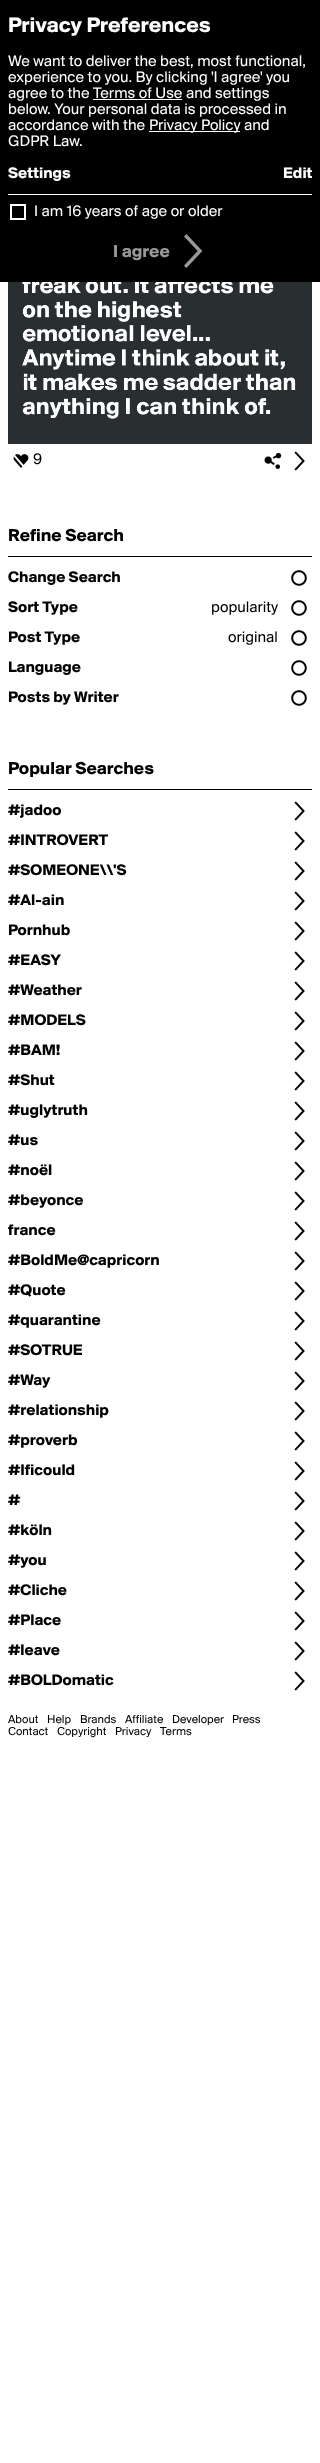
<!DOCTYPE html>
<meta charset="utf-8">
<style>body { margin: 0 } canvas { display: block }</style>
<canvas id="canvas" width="320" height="2463"></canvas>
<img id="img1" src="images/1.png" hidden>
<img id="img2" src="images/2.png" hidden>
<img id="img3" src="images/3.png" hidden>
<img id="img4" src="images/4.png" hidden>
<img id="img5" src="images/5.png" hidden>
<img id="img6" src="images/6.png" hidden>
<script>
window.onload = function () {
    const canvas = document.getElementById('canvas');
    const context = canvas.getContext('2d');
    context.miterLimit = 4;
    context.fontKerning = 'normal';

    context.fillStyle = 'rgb(255, 255, 255)';
    context.fillRect(0, 0, 320, 2463);
    context.fillStyle = 'rgb(0, 0, 0)';
    context.fillRect(0, 0, 320, 282);
    context.fillStyle = 'rgb(255, 255, 255)';
    context.fillRect(93, 99, 89, 1);
    context.fillRect(149, 131, 91, 1);
    context.fillRect(8, 194, 304, 1);
    context.strokeStyle = 'rgb(255, 255, 255)';
    context.lineWidth = 2;
    context.strokeRect(11, 205, 14, 14);
    context.drawImage(document.getElementById('img1'), 184, 234, 19, 34);
    context.drawImage(document.getElementById('img2'), 8, 282, 304, 162);
    context.drawImage(document.getElementById('img3'), 13, 454, 16, 14);
    context.drawImage(document.getElementById('img4'), 264, 452, 18, 18);
    context.drawImage(document.getElementById('img5'), 294, 451, 11, 20);
    context.fillStyle = 'rgb(0, 0, 0)';
    context.fillRect(8, 556, 304, 1);
    context.drawImage(document.getElementById('img6'), 291, 570, 16, 16);
    context.drawImage(document.getElementById('img6'), 291, 600, 16, 16);
    context.drawImage(document.getElementById('img6'), 291, 630, 16, 16);
    context.drawImage(document.getElementById('img6'), 291, 660, 16, 16);
    context.drawImage(document.getElementById('img6'), 291, 690, 16, 16);
    context.fillRect(8, 789, 304, 1);
    context.drawImage(document.getElementById('img5'), 294, 801, 11, 20);
    context.drawImage(document.getElementById('img5'), 294, 831, 11, 20);
    context.drawImage(document.getElementById('img5'), 294, 861, 11, 20);
    context.drawImage(document.getElementById('img5'), 294, 891, 11, 20);
    context.drawImage(document.getElementById('img5'), 294, 921, 11, 20);
    context.drawImage(document.getElementById('img5'), 294, 951, 11, 20);
    context.drawImage(document.getElementById('img5'), 294, 981, 11, 20);
    context.drawImage(document.getElementById('img5'), 294, 1011, 11, 20);
    context.drawImage(document.getElementById('img5'), 294, 1041, 11, 20);
    context.drawImage(document.getElementById('img5'), 294, 1071, 11, 20);
    context.drawImage(document.getElementById('img5'), 294, 1101, 11, 20);
    context.drawImage(document.getElementById('img5'), 294, 1131, 11, 20);
    context.drawImage(document.getElementById('img5'), 294, 1161, 11, 20);
    context.drawImage(document.getElementById('img5'), 294, 1191, 11, 20);
    context.drawImage(document.getElementById('img5'), 294, 1221, 11, 20);
    context.drawImage(document.getElementById('img5'), 294, 1251, 11, 20);
    context.drawImage(document.getElementById('img5'), 294, 1281, 11, 20);
    context.drawImage(document.getElementById('img5'), 294, 1311, 11, 20);
    context.drawImage(document.getElementById('img5'), 294, 1341, 11, 20);
    context.drawImage(document.getElementById('img5'), 294, 1371, 11, 20);
    context.drawImage(document.getElementById('img5'), 294, 1401, 11, 20);
    context.drawImage(document.getElementById('img5'), 294, 1431, 11, 20);
    context.drawImage(document.getElementById('img5'), 294, 1461, 11, 20);
    context.drawImage(document.getElementById('img5'), 294, 1491, 11, 20);
    context.drawImage(document.getElementById('img5'), 294, 1521, 11, 20);
    context.drawImage(document.getElementById('img5'), 294, 1551, 11, 20);
    context.drawImage(document.getElementById('img5'), 294, 1581, 11, 20);
    context.drawImage(document.getElementById('img5'), 294, 1611, 11, 20);
    context.drawImage(document.getElementById('img5'), 294, 1641, 11, 20);
    context.drawImage(document.getElementById('img5'), 294, 1671, 11, 20);
    context.font = 'bold 22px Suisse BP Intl';
    context.fillStyle = 'rgb(255, 255, 255)';
    context.fillText('Privacy Preferences', 8, 32);
    context.font = '16px Suisse BP Intl';
    context.fillText('We want to deliver the best, most functional,', 8, 66);
    context.fillText('experience to you. By clicking \'I agree\' you', 8, 82);
    context.fillText('agree to the Terms of Use and settings', 8, 98);
    context.fillText('below. Your personal data is processed in', 8, 114);
    context.fillText('accordance with the', 8, 130);
    context.fillText('Privacy Policy and', 149, 130);
    context.fillText('GDPR Law.', 8, 146);
    context.font = 'bold 16px Suisse BP Intl';
    context.fillText('Settings', 8, 178);
    context.fillText('Edit', 283, 178);
    context.font = '16px Suisse BP Intl';
    context.fillText('I am 16 years of age or older', 34, 216);
    context.font = 'bold 18px Suisse BP Intl';
    context.fillStyle = 'rgb(153, 153, 153)';
    context.fillText('I agree', 113, 257);
    context.font = '16px Suisse BP Intl';
    context.fillStyle = 'rgb(0, 0, 0)';
    context.fillText('9', 33, 464);
    context.font = 'bold 18px Suisse BP Intl';
    context.fillText('Refine Search', 8, 541);
    context.font = 'bold 16px Suisse BP Intl';
    context.fillText('Change Search', 8, 582);
    context.fillText('Sort Type', 8, 612);
    context.font = '16px Suisse BP Intl';
    context.fillText('popularity', 211, 612);
    context.font = 'bold 16px Suisse BP Intl';
    context.fillText('Post Type', 8, 642);
    context.font = '16px Suisse BP Intl';
    context.fillText('original', 228, 642);
    context.font = 'bold 16px Suisse BP Intl';
    context.fillText('Language', 8, 672);
    context.fillText('Posts by Writer', 8, 702);
    context.font = 'bold 18px Suisse BP Intl';
    context.fillText('Popular Searches', 8, 774);
    context.font = 'bold 16px Suisse BP Intl';
    context.fillText('#jadoo', 8, 815);
    context.fillText('#INTROVERT', 8, 845);
    context.fillText('#SOMEONE\\\\\'S', 8, 875);
    context.fillText('#Al-ain', 8, 905);
    context.fillText('Pornhub', 8, 935);
    context.fillText('#EASY', 8, 965);
    context.fillText('#Weather', 8, 995);
    context.fillText('#MODELS', 8, 1025);
    context.fillText('#BAM!', 8, 1055);
    context.fillText('#Shut', 8, 1085);
    context.fillText('#uglytruth', 8, 1115);
    context.fillText('#us', 8, 1145);
    context.fillText('#noël', 8, 1175);
    context.fillText('#beyonce', 8, 1205);
    context.fillText('france', 8, 1235);
    context.fillText('#BoldMe@capricorn', 8, 1265);
    context.fillText('#Quote', 8, 1295);
    context.fillText('#quarantine', 8, 1325);
    context.fillText('#SOTRUE', 8, 1355);
    context.fillText('#Way', 8, 1385);
    context.fillText('#relationship', 8, 1415);
    context.fillText('#proverb', 8, 1445);
    context.fillText('#Ificould', 8, 1475);
    context.fillText('#', 8, 1505);
    context.fillText('#köln', 8, 1535);
    context.fillText('#you', 8, 1565);
    context.fillText('#Cliche', 8, 1595);
    context.fillText('#Place', 8, 1625);
    context.fillText('#leave', 8, 1655);
    context.fillText('#BOLDomatic', 8, 1685);
    context.font = '12px Suisse BP Intl';
    context.fillText('About', 8, 1723);
    context.fillText('Help', 47, 1723);
    context.fillText('Brands', 80, 1723);
    context.fillText('Affiliate', 125, 1723);
    context.fillText('Developer', 172, 1723);
    context.fillText('Press', 232, 1723);
    context.fillText('Contact', 8, 1735);
    context.fillText('Copyright', 57, 1735);
    context.fillText('Privacy', 115, 1735);
    context.fillText('Terms', 160, 1735);
};
</script>
